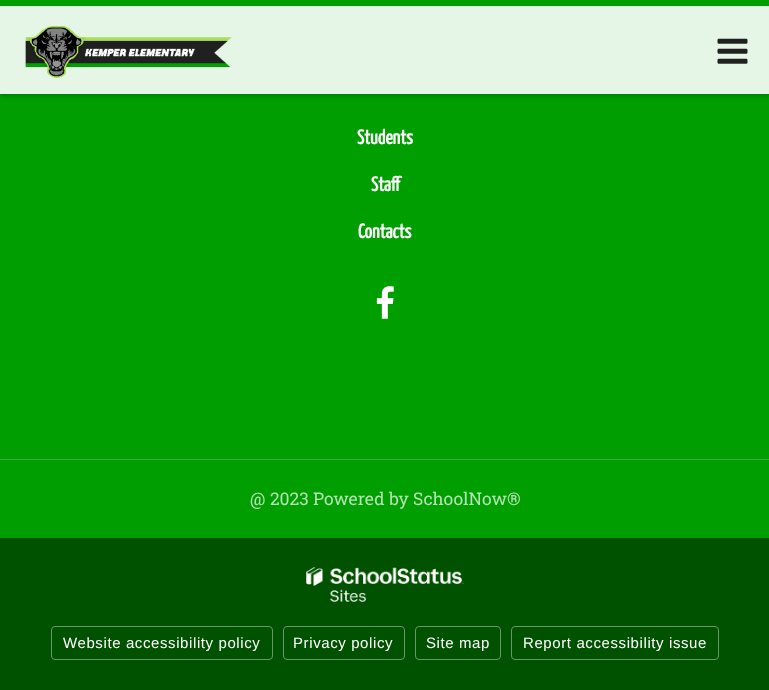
<!DOCTYPE html>
<meta charset="utf-8">
<style>body { margin: 0 } canvas { display: block }</style>
<canvas id="canvas" width="769" height="690"></canvas>
<img id="img1" src="images/1.png" hidden>
<img id="img2" src="images/2.png" hidden>
<img id="img3" src="images/3.png" hidden>
<img id="img4" src="images/4.png" hidden>
<script>
window.onload = function () {
    const canvas = document.getElementById('canvas');
    const context = canvas.getContext('2d');
    context.miterLimit = 4;
    context.fontKerning = 'normal';

    context.fillStyle = 'rgb(0, 158, 1)';
    context.fillRect(0, 0, 769, 690);
    context.save();
    context.beginPath();
    context.moveTo(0, 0);
    context.lineTo(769, 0);
    context.lineTo(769, 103);
    context.lineTo(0, 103);
    context.closePath();
    context.moveTo(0, 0);
    context.lineTo(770, 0);
    context.lineTo(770, 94);
    context.lineTo(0, 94);
    context.closePath();
    context.clip('evenodd');
    context.fillStyle = 'rgba(0, 0, 0, 0.2)';
    context.filter = 'blur(2px)';
    context.beginPath();
    context.rect(0, 3, 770, 93);
    context.fill();
    context.filter = 'none';
    context.restore();
    context.fillStyle = 'rgba(255, 255, 255, 0.9)';
    context.fillRect(0, 6, 769, 88);
    context.drawImage(document.getElementById('img1'), 25, 25, 207, 53);
    context.drawImage(document.getElementById('img2'), 717, 38, 31, 26);
    context.drawImage(document.getElementById('img3'), 376, 286, 18, 33);
    context.fillStyle = 'rgb(51, 177, 52)';
    context.fillRect(0, 459, 769, 1);
    context.fillStyle = 'rgb(0, 82, 1)';
    context.fillRect(0, 538, 769, 152);
    context.drawImage(document.getElementById('img4'), 306, 567, 158, 35);
    context.beginPath();
    context.roundRect(51.5, 626.5, 221, 33, 3.5);
    context.strokeStyle = 'rgb(102, 151, 103)';
    context.stroke();
    context.beginPath();
    context.roundRect(283.5, 626.5, 121, 33, 3.5);
    context.stroke();
    context.beginPath();
    context.roundRect(415.5, 626.5, 85, 33, 3.5);
    context.stroke();
    context.beginPath();
    context.roundRect(511.5, 626.5, 207, 33, 3.5);
    context.stroke();
    context.font = 'bold 20px Yanone Kaffeesatz';
    context.fillStyle = 'rgb(255, 255, 255)';
    context.fillText('Students', 357, 144);
    context.fillText('Staff', 371, 191);
    context.fillText('Contacts', 358, 238);
    context.font = '17.5px Roboto Slab';
    context.fillStyle = 'rgb(179, 226, 179)';
    context.fillText('@ 2023 Powered by SchoolNow®', 250, 505);
    context.letterSpacing = '0.6px';
    context.font = '15px Liberation Sans';
    context.fillStyle = 'rgb(255, 255, 255)';
    context.fillText('Website accessibility policy', 63, 648);
    context.fillText('Privacy policy', 293, 648);
    context.fillText('Site map', 426, 648);
    context.fillText('Report accessibility issue', 523, 648);
};
</script>
